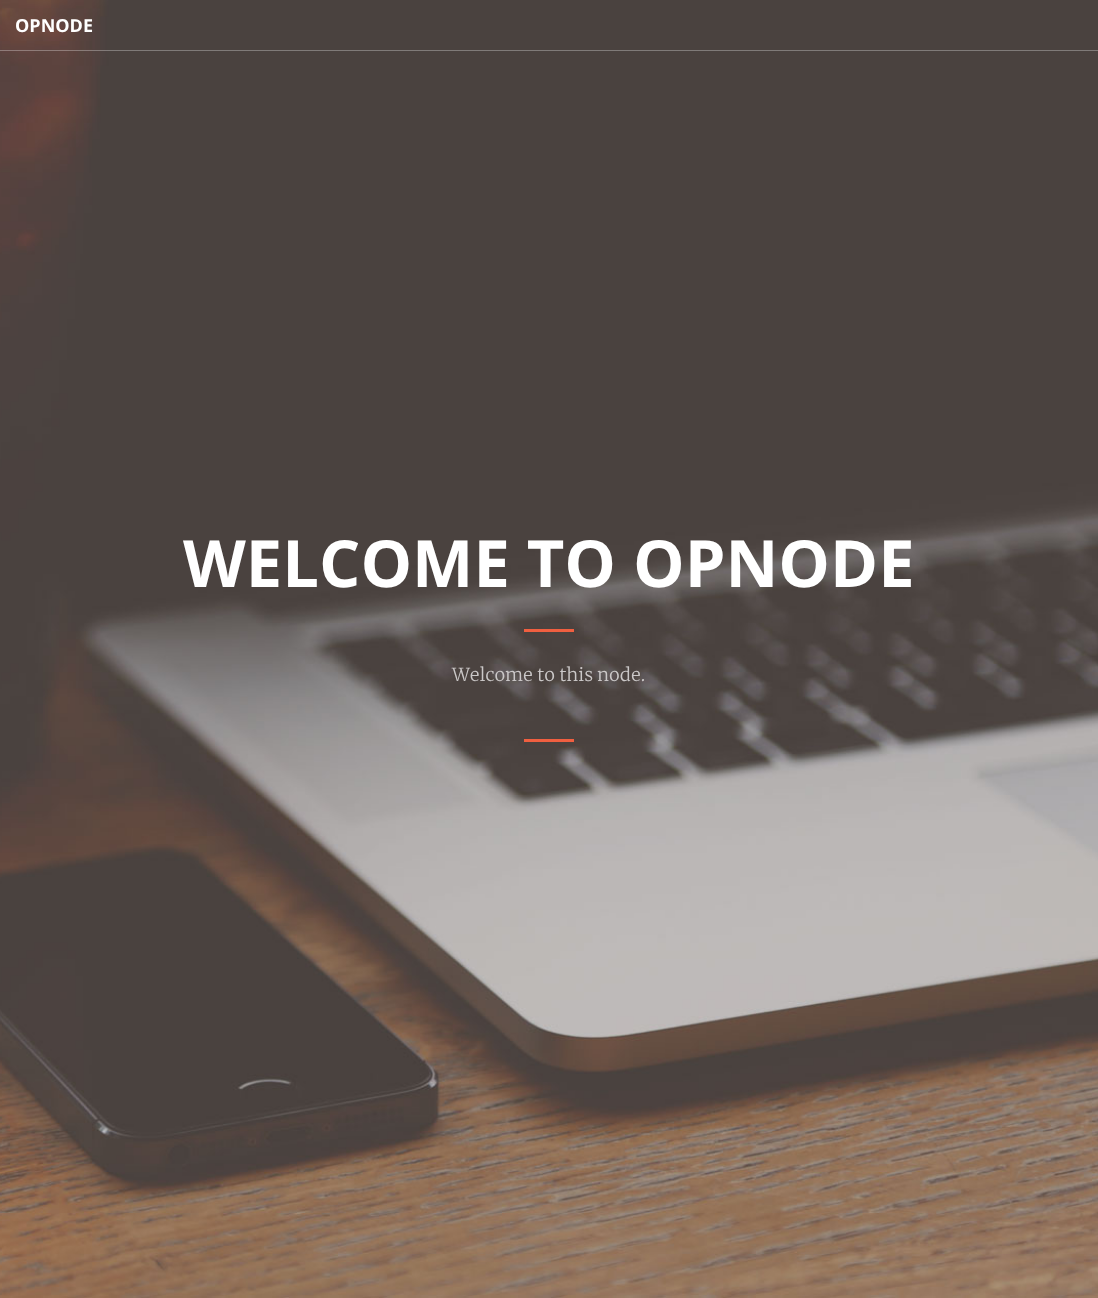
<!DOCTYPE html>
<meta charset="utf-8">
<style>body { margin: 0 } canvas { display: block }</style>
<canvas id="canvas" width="1098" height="1298"></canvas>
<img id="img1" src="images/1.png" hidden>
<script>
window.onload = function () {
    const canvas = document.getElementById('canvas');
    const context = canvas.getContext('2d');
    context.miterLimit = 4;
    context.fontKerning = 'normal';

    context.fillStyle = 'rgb(255, 255, 255)';
    context.fillRect(0, 0, 1098, 1298);
    context.drawImage(document.getElementById('img1'), 0, 0, 1098, 1298);
    context.fillStyle = 'rgba(255, 255, 255, 0.3)';
    context.fillRect(0, 50, 1098, 1);
    context.fillStyle = 'rgb(240, 95, 64)';
    context.fillRect(524, 629, 50, 3);
    context.fillRect(524, 739, 50, 3);
    context.font = 'bold 18px Open Sans';
    context.fillStyle = 'rgb(255, 255, 255)';
    context.fillText('OPNODE', 15, 32);
    context.font = 'bold 65px Open Sans';
    context.fillText('WELCOME TO OPNODE', 183, 587);
    context.font = '300 18px Merriweather';
    context.fillStyle = 'rgb(203, 200, 200)';
    context.fillText('Welcome to this node.', 452, 681);
};
</script>
